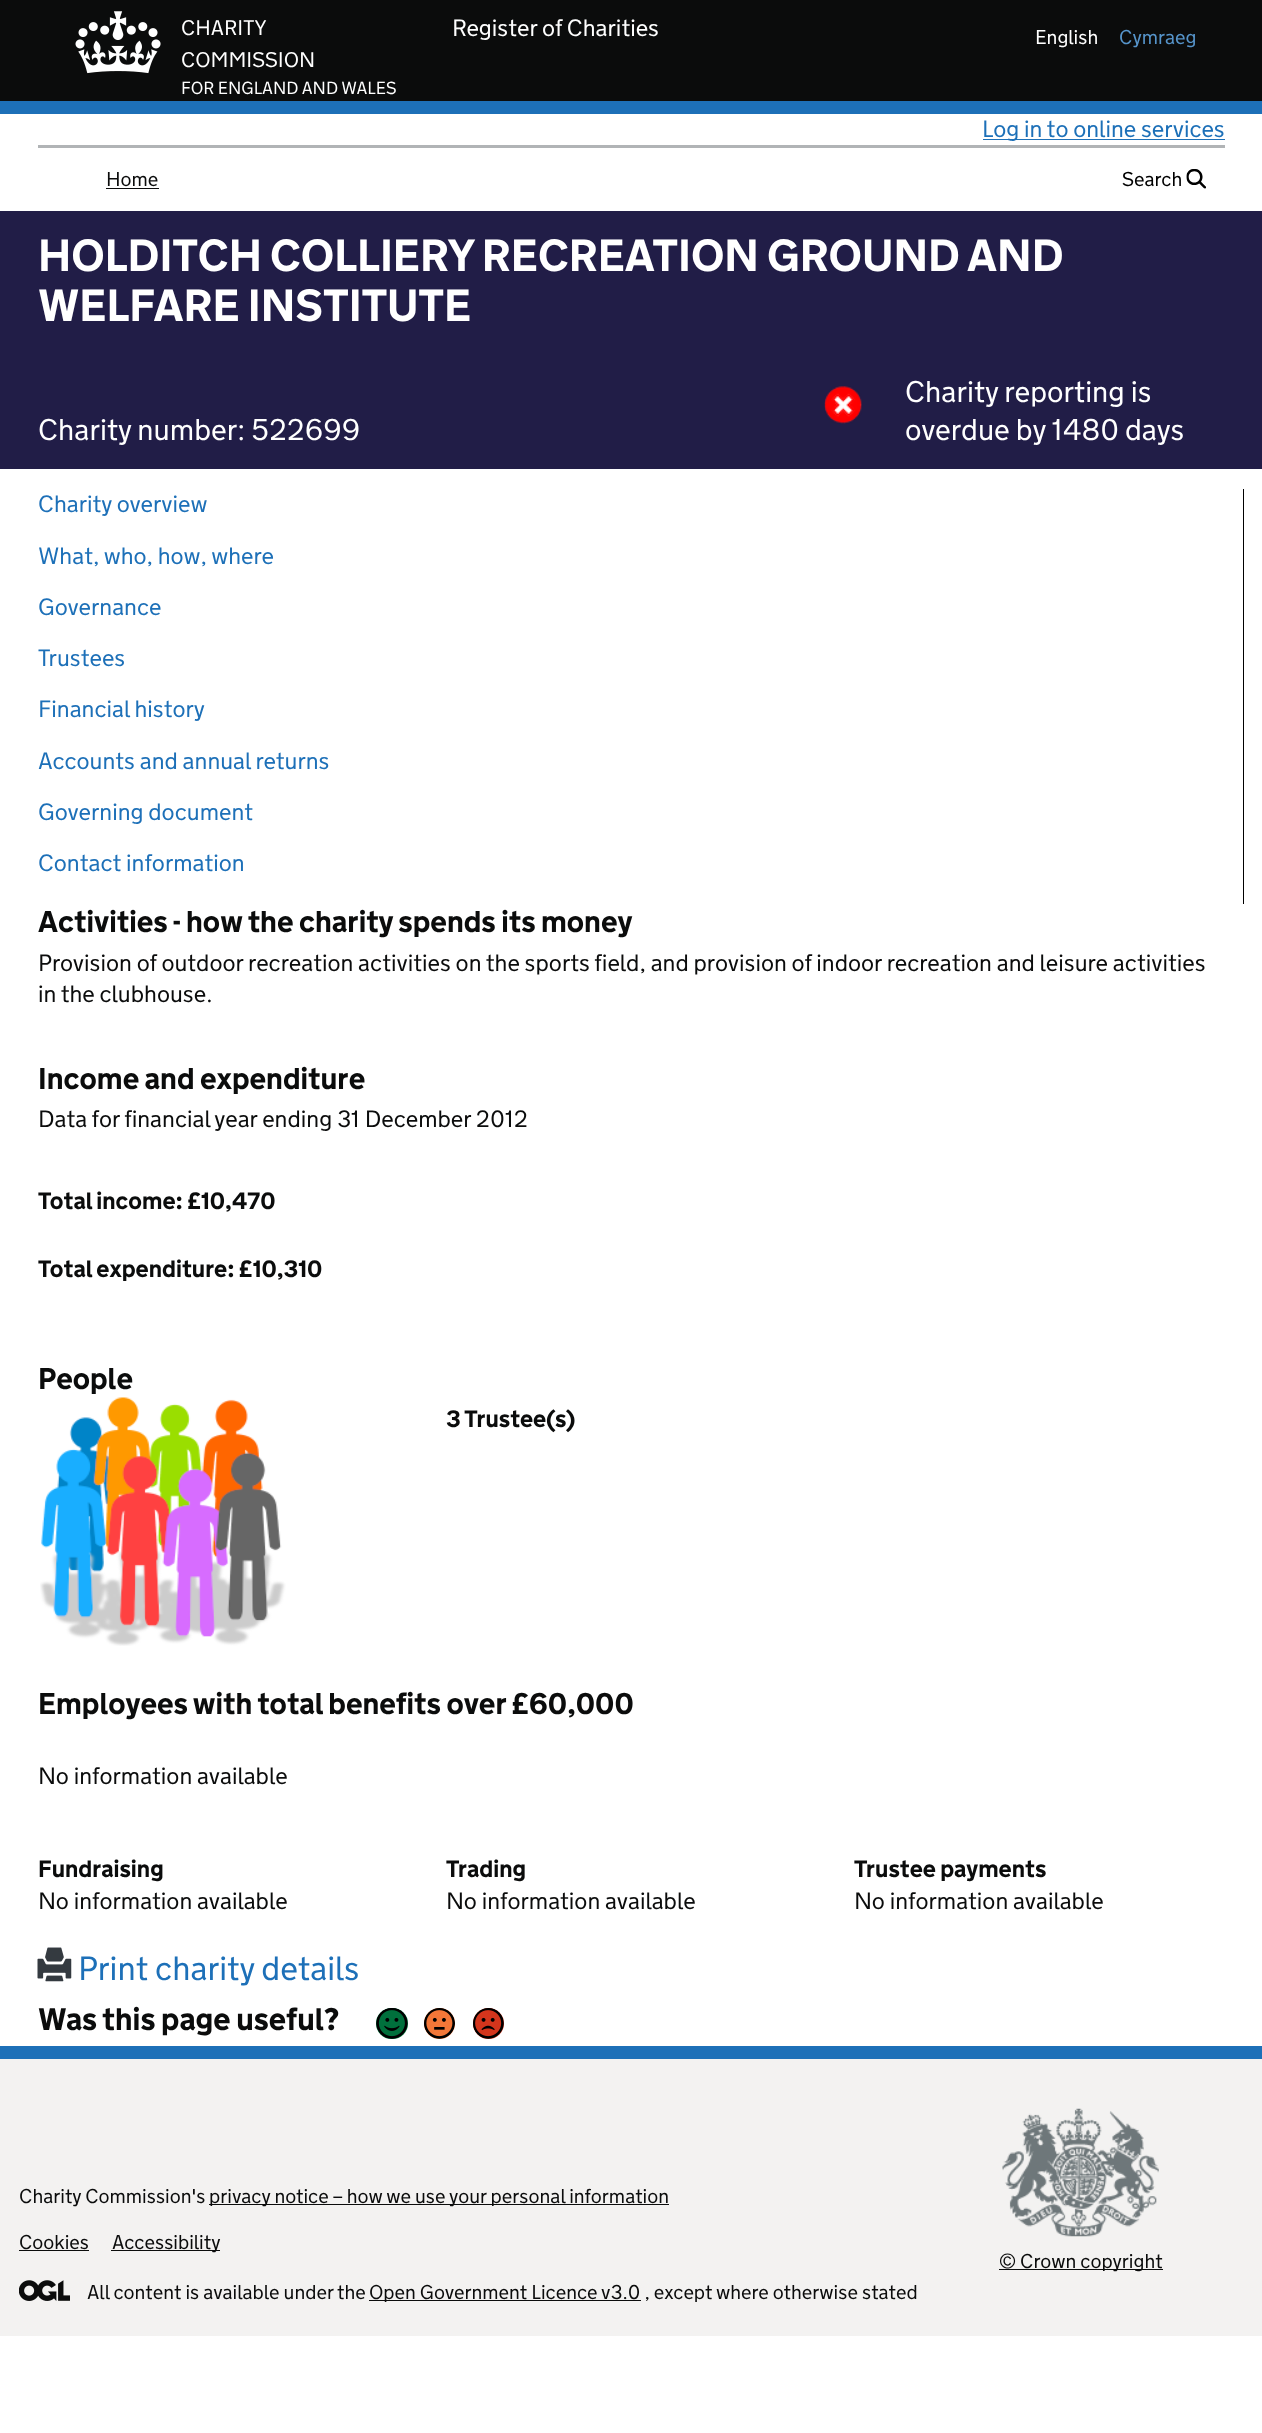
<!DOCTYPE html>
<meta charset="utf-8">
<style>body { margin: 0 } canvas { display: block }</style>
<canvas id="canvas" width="1262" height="2433"></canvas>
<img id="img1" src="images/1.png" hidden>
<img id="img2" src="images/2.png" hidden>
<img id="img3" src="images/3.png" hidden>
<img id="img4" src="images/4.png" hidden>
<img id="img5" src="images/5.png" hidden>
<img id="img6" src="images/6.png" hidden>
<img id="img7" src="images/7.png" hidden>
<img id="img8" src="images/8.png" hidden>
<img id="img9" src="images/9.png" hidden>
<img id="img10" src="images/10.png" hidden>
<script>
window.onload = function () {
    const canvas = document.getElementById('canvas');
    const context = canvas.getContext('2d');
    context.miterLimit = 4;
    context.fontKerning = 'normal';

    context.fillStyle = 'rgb(255, 255, 255)';
    context.fillRect(0, 0, 1262, 2433);
    context.fillStyle = 'rgb(11, 12, 12)';
    context.fillRect(0, 0, 1262, 101);
    context.fillStyle = 'rgb(29, 112, 184)';
    context.fillRect(0, 101, 1262, 13);
    context.drawImage(document.getElementById('img1'), 75, 11, 86, 63);
    context.fillStyle = 'rgb(177, 180, 182)';
    context.fillRect(38, 145, 1187, 3);
    context.fillStyle = 'rgb(29, 112, 184)';
    context.fillRect(983, 139, 242, 1);
    context.fillStyle = 'rgb(11, 12, 12)';
    context.fillRect(106, 188, 53, 1);
    context.drawImage(document.getElementById('img2'), 1186, 169, 20, 20);
    context.fillStyle = 'rgb(33, 29, 71)';
    context.fillRect(0, 211, 1262, 258);
    context.drawImage(document.getElementById('img3'), 824, 386, 38, 38);
    context.fillStyle = 'rgb(0, 0, 0)';
    context.fillRect(1243, 489, 1, 415);
    context.drawImage(document.getElementById('img4'), 40, 1397, 246, 249);
    context.drawImage(document.getElementById('img5'), 37, 1947, 35, 35);
    context.fillStyle = 'rgb(0, 112, 60)';
    context.beginPath();
    context.roundRect(376, 2008, 32, 31, 15.5);
    context.fill();
    context.drawImage(document.getElementById('img6'), 376, 2008, 32, 31);
    context.fillStyle = 'rgb(244, 119, 56)';
    context.beginPath();
    context.arc(439.5, 2023.5, 15.5, 0, 2 * Math.PI);
    context.fill();
    context.drawImage(document.getElementById('img7'), 424, 2008, 31, 31);
    context.fillStyle = 'rgb(212, 53, 28)';
    context.beginPath();
    context.arc(488.5, 2023.5, 15.5, 0, 2 * Math.PI);
    context.fill();
    context.drawImage(document.getElementById('img8'), 473, 2008, 31, 31);
    context.fillStyle = 'rgb(243, 242, 241)';
    context.fillRect(0, 2059, 1262, 277);
    context.fillStyle = 'rgb(29, 112, 184)';
    context.fillRect(0, 2046, 1262, 13);
    context.fillStyle = 'rgb(11, 12, 12)';
    context.fillRect(209, 2204, 460, 1);
    context.fillRect(19, 2250, 70, 1);
    context.fillRect(111, 2250, 109, 1);
    context.drawImage(document.getElementById('img9'), 19, 2280, 51, 21);
    context.fillRect(369, 2300, 272, 1);
    context.drawImage(document.getElementById('img10'), 1002, 2108, 157, 129);
    context.fillRect(999, 2269, 164, 1);
    context.font = '300 21.25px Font';
    context.fillStyle = 'rgb(255, 255, 255)';
    context.fillText('CHARITY', 181, 35);
    context.fillText('COMMISSION', 181, 67);
    context.font = '300 17.5px Font';
    context.fillText('FOR ENGLAND AND WALES', 181, 94);
    context.font = '300 23.75px Font';
    context.fillText('Register of Charities', 452, 36);
    context.font = '300 20px Font';
    context.fillText('English', 1035, 44);
    context.fillStyle = 'rgb(86, 148, 202)';
    context.fillText('Cymraeg', 1119, 44);
    context.font = '300 23.75px Font';
    context.fillStyle = 'rgb(29, 112, 184)';
    context.fillText('Log in to online services', 982, 137);
    context.font = '300 20px Font';
    context.fillStyle = 'rgb(11, 12, 12)';
    context.fillText('Home', 106, 186);
    context.fillStyle = 'rgb(0, 0, 0)';
    context.fillText('Search', 1122, 186);
    context.font = 'bold 45px Font';
    context.fillStyle = 'rgb(255, 255, 255)';
    context.fillText('HOLDITCH COLLIERY RECREATION GROUND AND', 38, 271);
    context.fillText('WELFARE INSTITUTE', 38, 321);
    context.font = '300 30px Font';
    context.fillText('Charity number: 522699', 38, 440);
    context.fillText('Charity reporting is', 905, 402);
    context.fillText('overdue by 1480 days', 905, 440);
    context.font = '300 23.75px Font';
    context.fillStyle = 'rgb(29, 112, 184)';
    context.fillText('Charity overview', 38, 512);
    context.fillText('What, who, how, where', 38, 564);
    context.fillText('Governance', 38, 615);
    context.fillText('Trustees', 38, 666);
    context.fillText('Financial history', 38, 717);
    context.fillText('Accounts and annual returns', 38, 769);
    context.fillText('Governing document', 38, 820);
    context.fillText('Contact information', 38, 871);
    context.font = 'bold 30px Font';
    context.fillStyle = 'rgb(11, 12, 12)';
    context.fillText('Activities - how the charity spends its money', 38, 932);
    context.font = '300 23.75px Font';
    context.fillText('Provision of outdoor recreation activities on the sports field, and provision of indoor recreation and leisure activities', 38, 971);
    context.fillText('in the clubhouse.', 38, 1002);
    context.font = 'bold 30px Font';
    context.fillText('Income and expenditure', 38, 1089);
    context.font = '300 23.75px Font';
    context.fillText('Data for financial year ending 31 December 2012', 38, 1127);
    context.font = 'bold 23.75px Font';
    context.fillText('Total income: £10,470', 38, 1209);
    context.fillText('Total expenditure: £10,310', 38, 1277);
    context.font = 'bold 30px Font';
    context.fillText('People', 38, 1389);
    context.font = 'bold 23.75px Font';
    context.fillText('3 Trustee(s)', 446, 1427);
    context.font = 'bold 30px Font';
    context.fillText('Employees with total benefits over £60,000', 38, 1714);
    context.font = '300 23.75px Font';
    context.fillText('No information available', 38, 1784);
    context.font = 'bold 23.75px Font';
    context.fillText('Fundraising', 38, 1877);
    context.font = '300 23.75px Font';
    context.fillText('No information available', 38, 1909);
    context.font = 'bold 23.75px Font';
    context.fillText('Trading', 446, 1877);
    context.font = '300 23.75px Font';
    context.fillText('No information available', 446, 1909);
    context.font = 'bold 23.75px Font';
    context.fillText('Trustee payments', 854, 1877);
    context.font = '300 23.75px Font';
    context.fillText('No information available', 854, 1909);
    context.font = '300 33.75px Font';
    context.fillStyle = 'rgb(29, 112, 184)';
    context.fillText('Print charity details', 78, 1980);
    context.font = 'bold 31.25px Font';
    context.fillStyle = 'rgb(11, 12, 12)';
    context.fillText('Was this page useful?', 38, 2030);
    context.font = '300 20px Font';
    context.fillText('Charity Commission\'s', 19, 2203);
    context.fillText('privacy notice – how we use your personal information', 209, 2203);
    context.fillText('Cookies', 19, 2249);
    context.fillText('Accessibility', 112, 2249);
    context.fillText('All content is available under the', 87, 2299);
    context.fillText('Open Government Licence v3.0 , except where otherwise stated', 369, 2299);
    context.fillText('© Crown copyright', 999, 2268);
};
</script>
